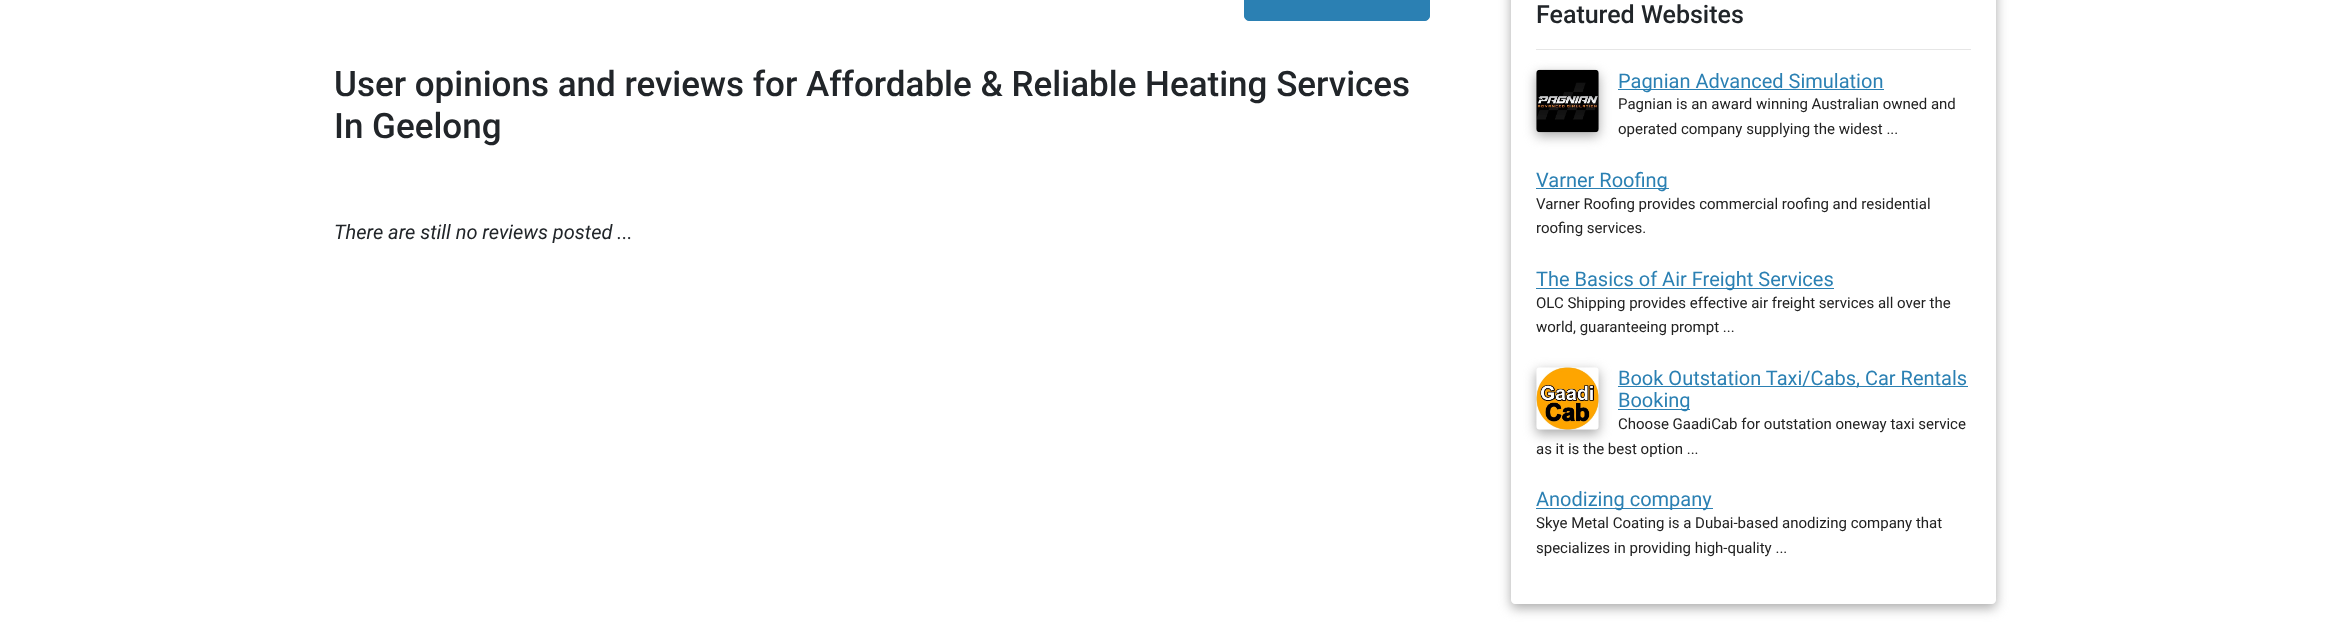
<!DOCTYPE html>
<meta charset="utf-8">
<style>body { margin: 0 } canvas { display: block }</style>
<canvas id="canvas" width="2331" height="634"></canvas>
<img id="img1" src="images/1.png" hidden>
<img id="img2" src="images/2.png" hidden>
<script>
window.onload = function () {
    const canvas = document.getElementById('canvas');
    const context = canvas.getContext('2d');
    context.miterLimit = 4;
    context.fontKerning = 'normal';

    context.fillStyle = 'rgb(255, 255, 255)';
    context.fillRect(0, 0, 2331, 634);
    context.fillStyle = 'rgb(43, 128, 179)';
    context.beginPath();
    context.roundRect(1244.5, -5.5, 185, 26, 4.5);
    context.fill();
    context.strokeStyle = 'rgb(43, 128, 179)';
    context.stroke();
    context.save();
    context.beginPath();
    context.moveTo(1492, 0);
    context.lineTo(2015, 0);
    context.lineTo(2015, 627);
    context.lineTo(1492, 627);
    context.closePath();
    context.moveTo(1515, -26);
    context.lineTo(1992, -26);
    context.bezierCurveTo(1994, -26, 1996, -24, 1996, -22);
    context.lineTo(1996, 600);
    context.bezierCurveTo(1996, 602, 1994, 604, 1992, 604);
    context.lineTo(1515, 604);
    context.bezierCurveTo(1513, 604, 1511, 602, 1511, 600);
    context.lineTo(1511, -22);
    context.bezierCurveTo(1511, -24, 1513, -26, 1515, -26);
    context.closePath();
    context.clip('evenodd');
    context.fillStyle = 'rgb(170, 170, 170)';
    context.filter = 'blur(6px)';
    context.beginPath();
    context.roundRect(1511, -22, 485, 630, 4);
    context.fill();
    context.filter = 'none';
    context.restore();
    context.fillStyle = 'rgb(230, 230, 230)';
    context.fillRect(1536, 49, 435, 1);
    context.fillStyle = 'rgb(170, 170, 170)';
    context.filter = 'blur(6px)';
    context.beginPath();
    context.roundRect(1536, 74, 63, 62, 4);
    context.fill();
    context.filter = 'none';
    context.drawImage(document.getElementById('img1'), 1536, 69, 63, 64);
    context.fillStyle = 'rgb(43, 128, 179)';
    context.fillRect(1618, 89, 266, 1);
    context.fillRect(1536, 188, 133, 1);
    context.fillRect(1536, 288, 298, 1);
    context.fillStyle = 'rgb(170, 170, 170)';
    context.filter = 'blur(6px)';
    context.beginPath();
    context.roundRect(1536, 371, 63, 63, 4);
    context.fill();
    context.filter = 'none';
    context.drawImage(document.getElementById('img2'), 1536, 367, 63, 63);
    context.fillStyle = 'rgb(43, 128, 179)';
    context.fillRect(1618, 386, 350, 1);
    context.fillRect(1618, 409, 72, 1);
    context.fillRect(1536, 508, 177, 1);
    context.font = '500 35px Roboto';
    context.fillStyle = 'rgb(33, 37, 41)';
    context.fillText('User opinions and reviews for Affordable & Reliable Heating Services', 334, 96);
    context.fillText('In Geelong', 334, 138);
    context.font = 'italic 20px Roboto';
    context.fillText('There are still no reviews posted ...', 334, 239);
    context.font = '500 25px Roboto';
    context.fillText('Featured Websites', 1536, 23);
    context.font = '20px Roboto';
    context.fillStyle = 'rgb(43, 128, 179)';
    context.fillText('Pagnian Advanced Simulation', 1618, 88);
    context.font = '15px Roboto';
    context.fillStyle = 'rgb(34, 34, 34)';
    context.fillText('Pagnian is an award winning Australian owned and', 1618, 109);
    context.fillText('operated company supplying the widest ...', 1618, 134);
    context.font = '20px Roboto';
    context.fillStyle = 'rgb(43, 128, 179)';
    context.fillText('Varner Roofing', 1536, 187);
    context.font = '15px Roboto';
    context.fillStyle = 'rgb(34, 34, 34)';
    context.fillText('Varner Roofing provides commercial roofing and residential', 1536, 209);
    context.fillText('roofing services.', 1536, 233);
    context.font = '20px Roboto';
    context.fillStyle = 'rgb(43, 128, 179)';
    context.fillText('The Basics of Air Freight Services', 1536, 286);
    context.font = '15px Roboto';
    context.fillStyle = 'rgb(34, 34, 34)';
    context.fillText('OLC Shipping provides effective air freight services all over the', 1536, 308);
    context.fillText('world, guaranteeing prompt ...', 1536, 332);
    context.font = '20px Roboto';
    context.fillStyle = 'rgb(43, 128, 179)';
    context.fillText('Book Outstation Taxi/Cabs, Car Rentals', 1618, 385);
    context.fillText('Booking', 1618, 407);
    context.font = '15px Roboto';
    context.fillStyle = 'rgb(34, 34, 34)';
    context.fillText('Choose GaadiCab for outstation oneway taxi service', 1618, 429);
    context.fillText('as it is the best option ...', 1536, 454);
    context.font = '20px Roboto';
    context.fillStyle = 'rgb(43, 128, 179)';
    context.fillText('Anodizing company', 1536, 506);
    context.font = '15px Roboto';
    context.fillStyle = 'rgb(34, 34, 34)';
    context.fillText('Skye Metal Coating is a Dubai-based anodizing company that', 1536, 528);
    context.fillText('specializes in providing high-quality ...', 1536, 553);
};
</script>
